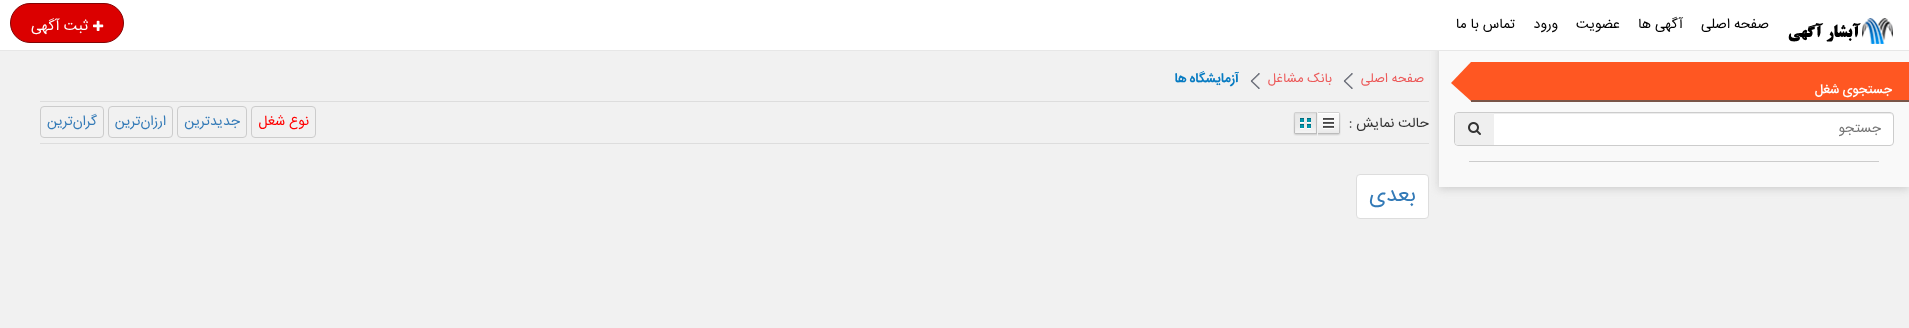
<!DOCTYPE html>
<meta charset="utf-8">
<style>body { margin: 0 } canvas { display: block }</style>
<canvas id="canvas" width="1909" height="328"></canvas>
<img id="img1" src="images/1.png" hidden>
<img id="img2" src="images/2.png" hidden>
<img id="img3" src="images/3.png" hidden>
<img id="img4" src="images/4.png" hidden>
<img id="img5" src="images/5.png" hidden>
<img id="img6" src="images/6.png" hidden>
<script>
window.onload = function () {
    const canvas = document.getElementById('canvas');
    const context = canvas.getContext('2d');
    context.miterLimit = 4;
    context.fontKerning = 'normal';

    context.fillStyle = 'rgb(241, 241, 241)';
    context.fillRect(0, 0, 1909, 328);
    context.fillStyle = 'rgb(204, 204, 204)';
    context.filter = 'blur(4px)';
    context.beginPath();
    context.rect(1439, 44, 470, 145);
    context.fill();
    context.filter = 'none';
    context.fillStyle = 'rgb(255, 255, 255)';
    context.fillRect(0, 0, 1909, 50);
    context.fillStyle = 'rgb(231, 231, 231)';
    context.fillRect(0, 50, 1909, 1);
    context.drawImage(document.getElementById('img1'), 1788, 18, 105, 26);
    context.fillStyle = 'rgb(219, 0, 0)';
    context.beginPath();
    context.roundRect(10.5, 3.5, 113, 39, 19.5);
    context.fill();
    context.strokeStyle = 'rgb(130, 4, 4)';
    context.stroke();
    context.drawImage(document.getElementById('img2'), 93, 20, 11, 11);
    context.fillStyle = 'rgb(249, 249, 249)';
    context.fillRect(1439, 51, 470, 136);
    context.fillStyle = 'rgb(255, 87, 34)';
    context.fillRect(1471, 62, 438, 38);
    context.fillStyle = 'rgb(121, 85, 72)';
    context.fillRect(1471, 100, 438, 2);
    context.fillStyle = 'rgb(255, 87, 34)';
    context.beginPath();
    context.moveTo(1471, 62);
    context.lineTo(1471, 101);
    context.lineTo(1451, 83);
    context.closePath();
    context.fill();
    context.fillStyle = 'rgb(255, 255, 255)';
    context.beginPath();
    context.roundRect(1454, 112, 440, 34, 4);
    context.fill();
    context.fillStyle = 'rgb(236, 236, 236)';
    context.beginPath();
    context.moveTo(1458, 114);
    context.lineTo(1890, 114);
    context.bezierCurveTo(1892, 114, 1893, 115, 1893, 117);
    context.lineTo(1893, 115);
    context.lineTo(1891, 113);
    context.lineTo(1458, 113);
    context.bezierCurveTo(1456, 113, 1455, 115, 1455, 117);
    context.bezierCurveTo(1455, 115, 1456, 114, 1458, 114);
    context.closePath();
    context.fill();
    context.beginPath();
    context.roundRect(1454.5, 112.5, 439, 33, 3.5);
    context.strokeStyle = 'rgb(204, 204, 204)';
    context.stroke();
    context.fillStyle = 'rgb(239, 239, 239)';
    context.beginPath();
    context.roundRect(1455, 113, 39, 32, [4, 0, 0, 4]);
    context.fill();
    context.drawImage(document.getElementById('img3'), 1468, 122, 13, 13);
    context.fillStyle = 'rgb(204, 204, 204)';
    context.fillRect(1469, 161, 410, 1);
    context.fillStyle = 'rgb(221, 221, 221)';
    context.fillRect(40, 101, 1389, 1);
    context.drawImage(document.getElementById('img4'), 1343, 73, 10, 16);
    context.drawImage(document.getElementById('img4'), 1250, 73, 10, 16);
    context.fillRect(40, 143, 1389, 1);
    context.drawImage(document.getElementById('img5'), 1318, 112, 23, 24);
    context.drawImage(document.getElementById('img6'), 1293, 112, 24, 24);
    context.beginPath();
    context.roundRect(251.5, 106.5, 64, 31, 3.5);
    context.stroke();
    context.beginPath();
    context.roundRect(177.5, 106.5, 69, 31, 3.5);
    context.stroke();
    context.beginPath();
    context.roundRect(108.5, 106.5, 64, 31, 3.5);
    context.stroke();
    context.beginPath();
    context.roundRect(40.5, 106.5, 63, 31, 3.5);
    context.stroke();
    context.fillStyle = 'rgb(255, 255, 255)';
    context.beginPath();
    context.roundRect(1356.5, 174.5, 72, 44, 3.5);
    context.fill();
    context.strokeStyle = 'rgb(221, 221, 221)';
    context.stroke();
    context.direction = 'rtl';
    context.font = '14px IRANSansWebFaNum';
    context.fillStyle = 'rgb(0, 0, 0)';
    context.fillText('صفحه اصلی', 1769, 28);
    context.fillText('آگهی ها', 1683, 28);
    context.fillText('عضویت', 1620, 28);
    context.fillText('ورود', 1558, 28);
    context.fillText('تماس با ما', 1515, 28);
    context.font = '13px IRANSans';
    context.fillStyle = 'rgb(255, 255, 255)';
    context.fillText('ثبت آگهی', 88, 30);
    context.font = '500 13px IRANSansWebFaNum';
    context.fillText('جستجوی شغل', 1892, 93);
    context.font = '14px IRANSansWebFaNum';
    context.fillStyle = 'rgb(117, 117, 117)';
    context.fillText('جستجو', 1881, 132);
    context.font = '13px IRANSansWebFaNum';
    context.fillStyle = 'rgb(236, 90, 90)';
    context.fillText('صفحه اصلی', 1424, 82);
    context.fillText('بانک مشاغل', 1332, 82);
    context.font = 'bold 13px IRANSansWebFaNum';
    context.fillStyle = 'rgb(7, 123, 194)';
    context.fillText('آزمایشگاه ها', 1239, 82);
    context.font = '14px IRANSansWebFaNum';
    context.fillStyle = 'rgb(51, 51, 51)';
    context.fillText('حالت نمایش :', 1429, 127);
    context.fillStyle = 'rgb(255, 0, 0)';
    context.fillText('نوع شغل', 309, 125);
    context.fillStyle = 'rgb(51, 122, 183)';
    context.fillText('جدیدترین', 240, 125);
    context.fillText('ارزان‌ترین', 166, 125);
    context.fillText('گران‌ترین', 97, 125);
    context.font = '22px IRANSansWebFaNum';
    context.fillText('بعدی', 1416, 201);
};
</script>
